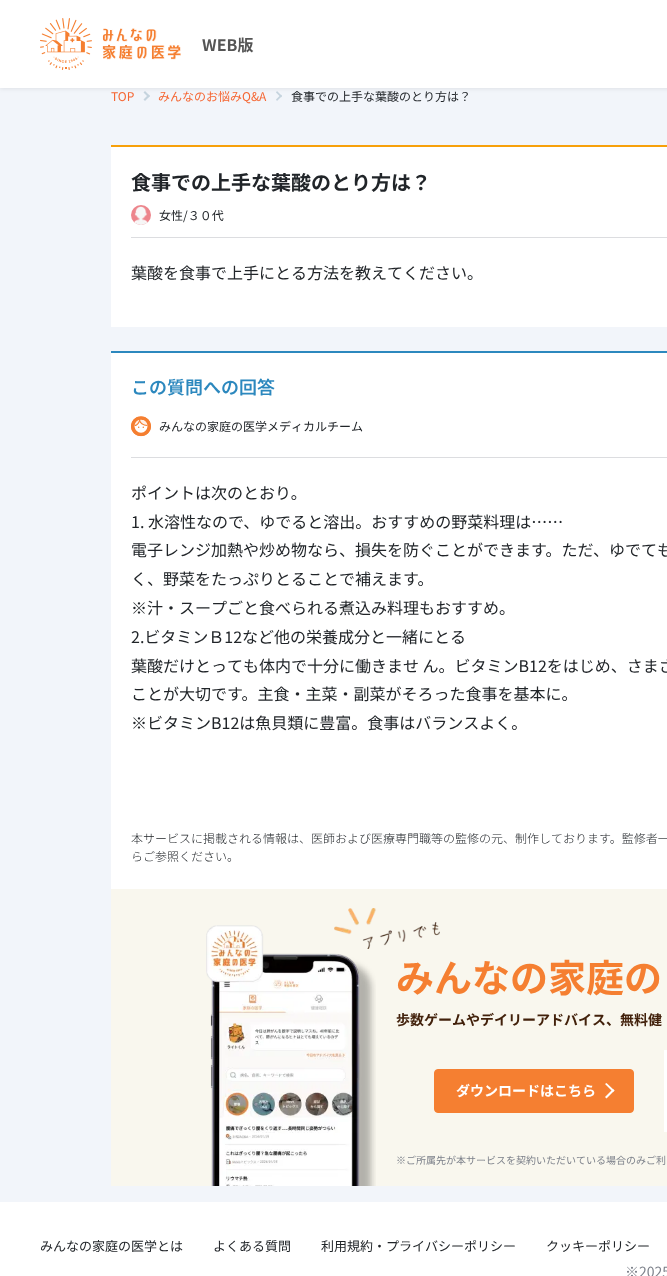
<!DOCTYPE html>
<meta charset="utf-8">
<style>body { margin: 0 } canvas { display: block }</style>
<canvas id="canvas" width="667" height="1276"></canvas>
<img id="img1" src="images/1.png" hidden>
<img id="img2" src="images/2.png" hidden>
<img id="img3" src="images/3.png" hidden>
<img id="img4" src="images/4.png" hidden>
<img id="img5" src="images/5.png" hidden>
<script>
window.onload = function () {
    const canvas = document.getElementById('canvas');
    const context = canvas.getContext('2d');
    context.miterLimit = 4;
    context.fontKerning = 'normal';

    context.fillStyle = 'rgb(242, 245, 250)';
    context.fillRect(0, 0, 667, 1276);
    context.fillStyle = 'rgb(197, 212, 222)';
    context.beginPath();
    context.moveTo(145, 91);
    context.lineTo(150, 96);
    context.lineTo(148.5, 97.5);
    context.lineTo(143.5, 92.5);
    context.closePath();
    context.fill();
    context.beginPath();
    context.moveTo(148.5, 94.5);
    context.lineTo(150, 96);
    context.lineTo(145, 101);
    context.lineTo(143.5, 99.5);
    context.closePath();
    context.fill();
    context.beginPath();
    context.moveTo(277, 91);
    context.lineTo(282, 96);
    context.lineTo(281, 97.5);
    context.lineTo(276, 92.5);
    context.closePath();
    context.fill();
    context.beginPath();
    context.moveTo(281, 94.5);
    context.lineTo(282, 96);
    context.lineTo(277, 101);
    context.lineTo(276, 99.5);
    context.closePath();
    context.fill();
    context.fillStyle = 'rgba(0, 0, 0, 0.08)';
    context.filter = 'blur(2px)';
    context.beginPath();
    context.rect(0, 1, 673, 88);
    context.fill();
    context.filter = 'none';
    context.fillStyle = 'rgb(255, 255, 255)';
    context.fillRect(0, 0, 667, 88);
    context.drawImage(document.getElementById('img1'), 40, 18, 141, 52);
    context.fillRect(111, 147, 556, 180);
    context.fillStyle = 'rgb(247, 160, 10)';
    context.fillRect(111, 145, 556, 2);
    context.fillStyle = 'rgb(220, 221, 224)';
    context.fillRect(131, 237, 536, 1);
    context.fillStyle = 'rgb(237, 133, 140)';
    context.beginPath();
    context.arc(141, 215, 10, 0, 2 * Math.PI);
    context.fill();
    context.drawImage(document.getElementById('img2'), 134, 206, 14, 19);
    context.fillStyle = 'rgb(255, 255, 255)';
    context.fillRect(111, 353, 556, 536);
    context.fillStyle = 'rgb(44, 136, 190)';
    context.fillRect(111, 351, 556, 2);
    context.fillStyle = 'rgb(220, 221, 224)';
    context.fillRect(131, 457, 536, 1);
    context.drawImage(document.getElementById('img3'), 131, 416, 20, 21);
    context.fillStyle = 'rgb(249, 247, 238)';
    context.fillRect(111, 889, 556, 297);
    context.drawImage(document.getElementById('img4'), 206, 925, 170, 261);
    context.drawImage(document.getElementById('img5'), 334, 908, 106, 41);
    context.fillStyle = 'rgb(245, 127, 49)';
    context.beginPath();
    context.roundRect(434.5, 1069.5, 199, 43, 3.5);
    context.fill();
    context.strokeStyle = 'rgb(245, 127, 49)';
    context.stroke();
    context.fillStyle = 'rgb(255, 255, 255)';
    context.beginPath();
    context.moveTo(606.5, 1083);
    context.lineTo(614.5, 1090.5);
    context.lineTo(613, 1092);
    context.lineTo(605, 1084);
    context.closePath();
    context.fill();
    context.beginPath();
    context.moveTo(613, 1089);
    context.lineTo(614.5, 1090.5);
    context.lineTo(606.5, 1098.5);
    context.lineTo(605, 1097);
    context.closePath();
    context.fill();
    context.fillRect(664, 1050, 3, 82);
    context.fillRect(0, 1202, 667, 74);
    context.font = 'bold 16px Noto Sans JP';
    context.fillStyle = 'rgb(85, 85, 85)';
    context.fillText('WEB版', 202, 51);
    context.font = '12px Noto Sans JP';
    context.fillStyle = 'rgb(245, 101, 49)';
    context.fillText('TOP', 111, 101);
    context.fillText('みんなのお悩みQ&A', 158, 101);
    context.fillStyle = 'rgb(33, 37, 41)';
    context.fillText('食事での上手な葉酸のとり方は？', 291, 101);
    context.font = 'bold 20px Noto Sans JP';
    context.fillText('食事での上手な葉酸のとり方は？', 131, 190);
    context.font = '12px Noto Sans JP';
    context.fillText('女性/３０代', 159, 220);
    context.font = '16px Noto Sans JP';
    context.fillText('葉酸を食事で上手にとる方法を教えてください。', 131, 279);
    context.font = '600 18px Noto Sans JP';
    context.fillStyle = 'rgb(44, 136, 190)';
    context.fillText('この質問への回答', 131, 394);
    context.font = '12px Noto Sans JP';
    context.fillStyle = 'rgb(33, 37, 41)';
    context.fillText('みんなの家庭の医学メディカルチーム', 159, 431);
    context.font = '16px Noto Sans JP';
    context.fillText('ポイントは次のとおり。', 131, 499);
    context.fillText('1. 水溶性なので、ゆでると溶出。おすすめの野菜料理は……', 131, 528);
    context.fillText('電子レンジ加熱や炒め物なら、損失を防ぐことができます。ただ、ゆでても', 131, 556);
    context.fillText('く、野菜をたっぷりとることで補えます。', 131, 585);
    context.fillText('※汁・スープごと食べられる煮込み料理もおすすめ。', 131, 614);
    context.fillText('2.ビタミンＢ12など他の栄養成分と一緒にとる', 131, 643);
    context.fillText('葉酸だけとっても体内で十分に働きませ ん。ビタミンB12をはじめ、さまざ', 131, 672);
    context.fillText('ことが大切です。主食・主菜・副菜がそろった食事を基本に。', 131, 700);
    context.fillText('※ビタミンB12は魚貝類に豊富。食事はバランスよく。', 131, 729);
    context.font = '300 12px Noto Sans JP';
    context.fillText('本サービスに掲載される情報は、医師および医療専門職等の監修の元、制作しております。監修者一', 131, 843);
    context.fillText('らご参照ください。', 131, 861);
    context.font = 'bold 38px Noto Sans JP';
    context.fillStyle = 'rgb(245, 127, 49)';
    context.fillText('みんなの家庭の', 396, 992);
    context.font = 'bold 14px Noto Sans JP';
    context.fillStyle = 'rgb(66, 33, 11)';
    context.fillText('歩数ゲームやデイリーアドバイス、無料健', 396, 1025);
    context.fillStyle = 'rgb(255, 255, 255)';
    context.fillText('ダウンロードはこちら', 456, 1096);
    context.font = '10px Noto Sans JP';
    context.fillStyle = 'rgb(124, 128, 138)';
    context.fillText('※ご所属先が本サービスを契約いただいている場合のみご利', 396, 1164);
    context.font = '13px Noto Sans JP';
    context.fillStyle = 'rgb(33, 37, 41)';
    context.fillText('みんなの家庭の医学とは', 40, 1251);
    context.fillText('よくある質問', 213, 1251);
    context.fillText('利用規約・プライバシーポリシー', 321, 1251);
    context.fillText('クッキーポリシー', 546, 1251);
    context.font = '14px Noto Sans JP';
    context.fillStyle = 'rgb(124, 128, 138)';
    context.fillText('※2025', 625, 1277);
};
</script>
